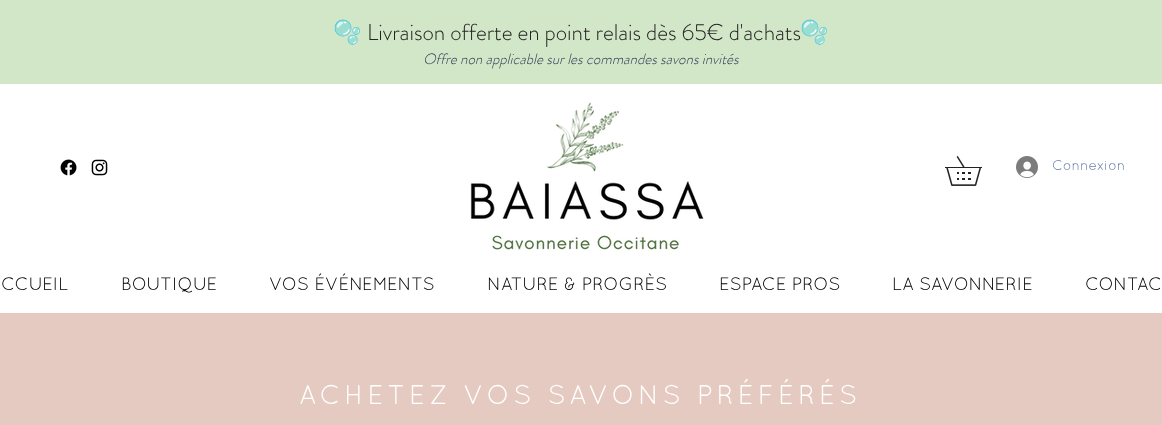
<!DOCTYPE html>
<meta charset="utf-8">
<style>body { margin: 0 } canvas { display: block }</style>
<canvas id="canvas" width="1162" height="425"></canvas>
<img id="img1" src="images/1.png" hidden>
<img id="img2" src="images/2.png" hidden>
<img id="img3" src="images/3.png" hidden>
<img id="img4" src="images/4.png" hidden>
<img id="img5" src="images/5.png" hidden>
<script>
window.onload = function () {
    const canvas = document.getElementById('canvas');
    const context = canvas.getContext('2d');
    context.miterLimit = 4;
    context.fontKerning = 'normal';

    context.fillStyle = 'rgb(229, 202, 193)';
    context.fillRect(0, 0, 1162, 425);
    context.fillStyle = 'rgb(210, 231, 199)';
    context.fillRect(0, 0, 1162, 84);
    context.fillStyle = 'rgb(255, 255, 255)';
    context.fillRect(0, 84, 1162, 229);
    context.drawImage(document.getElementById('img1'), 60, 159, 17, 17);
    context.drawImage(document.getElementById('img2'), 91, 159, 17, 17);
    context.drawImage(document.getElementById('img3'), 470, 102, 234, 148);
    context.drawImage(document.getElementById('img4'), 945, 156, 37, 30);
    context.drawImage(document.getElementById('img5'), 1016, 156, 22, 22);
    context.font = '23px Noto Color Emoji';
    context.fillStyle = 'rgb(36, 35, 35)';
    context.fillText('🫧', 333, 40);
    context.font = '300 23px "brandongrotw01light"';
    context.fillText('Livraison offerte en point relais dès 65€ d\'achats', 367, 40);
    context.font = '23px Noto Color Emoji';
    context.fillText('🫧', 800, 40);
    context.font = 'italic 300 15px "brandongrotw01light"';
    context.fillStyle = 'rgb(50, 65, 88)';
    context.fillText('Offre non applicable sur les commandes savons invités', 423, 64);
    context.font = '14px Quicksand';
    context.fillStyle = 'rgb(104, 127, 173)';
    context.fillText('Connexion', 1052, 170);
    context.font = '18px Quicksand';
    context.fillStyle = 'rgb(0, 0, 0)';
    context.fillText('CCUEIL', 1, 290);
    context.fillText('BOUTIQUE', 121, 290);
    context.fillText('VOS ÉVÉNEMENTS', 269, 290);
    context.fillText('NATURE & PROGRÈS', 487, 290);
    context.fillText('ESPACE PROS', 719, 290);
    context.fillText('LA SAVONNERIE', 892, 290);
    context.fillText('CONTAC', 1085, 290);
    context.letterSpacing = '4.05px';
    context.font = '27px Quicksand';
    context.fillStyle = 'rgb(255, 255, 255)';
    context.fillText('ACHETEZ VOS SAVONS PRÉFÉRÉS', 299, 404);
};
</script>
